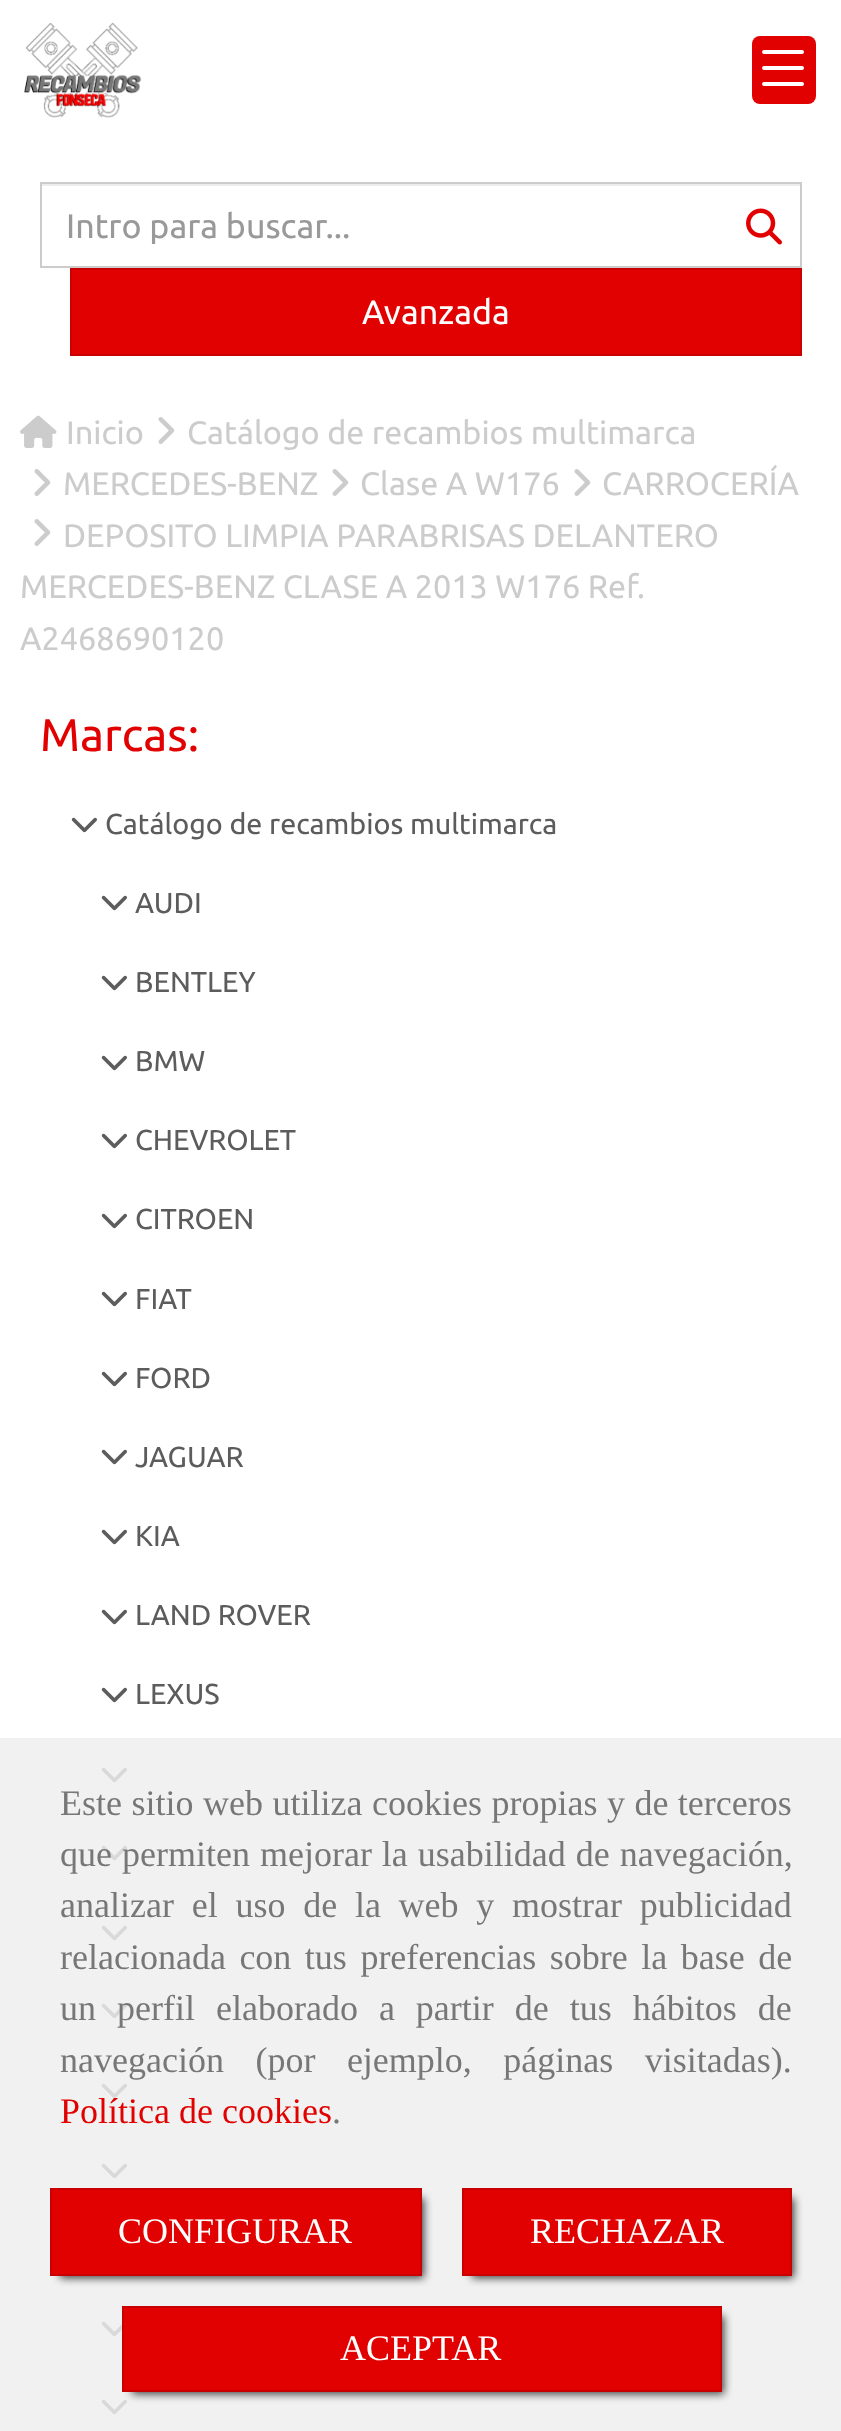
<!DOCTYPE html>
<meta charset="utf-8">
<style>body { margin: 0 } canvas { display: block }</style>
<canvas id="canvas" width="841" height="2431"></canvas>
<img id="img1" src="images/1.png" hidden>
<img id="img2" src="images/2.png" hidden>
<img id="img3" src="images/3.png" hidden>
<img id="img4" src="images/4.png" hidden>
<img id="img5" src="images/5.png" hidden>
<img id="img6" src="images/6.png" hidden>
<script>
window.onload = function () {
    const canvas = document.getElementById('canvas');
    const context = canvas.getContext('2d');
    context.miterLimit = 4;
    context.fontKerning = 'normal';

    context.fillStyle = 'rgb(255, 255, 255)';
    context.fillRect(0, 0, 841, 2431);
    context.drawImage(document.getElementById('img1'), 24, 22, 118, 96);
    context.fillStyle = 'rgb(225, 1, 0)';
    context.beginPath();
    context.roundRect(752, 36, 64, 68, 8);
    context.fill();
    context.fillStyle = 'rgb(255, 255, 255)';
    context.beginPath();
    context.roundRect(762, 66, 42, 4, 2);
    context.fill();
    context.beginPath();
    context.roundRect(762, 50, 42, 4, 2);
    context.fill();
    context.beginPath();
    context.roundRect(762, 82, 42, 4, 2);
    context.fill();
    context.fillStyle = 'rgb(236, 236, 236)';
    context.fillRect(42, 184, 758, 2);
    context.strokeStyle = 'rgb(204, 204, 204)';
    context.lineWidth = 2;
    context.strokeRect(41, 183, 760, 84);
    context.drawImage(document.getElementById('img2'), 746, 208, 36, 37);
    context.fillStyle = 'rgb(225, 1, 0)';
    context.beginPath();
    context.rect(71, 269, 730, 86);
    context.fill();
    context.strokeStyle = 'rgb(200, 1, 0)';
    context.stroke();
    context.drawImage(document.getElementById('img3'), 20, 415, 37, 33);
    context.drawImage(document.getElementById('img4'), 158, 417, 17, 27);
    context.drawImage(document.getElementById('img4'), 34, 469, 17, 27);
    context.drawImage(document.getElementById('img4'), 332, 469, 17, 27);
    context.drawImage(document.getElementById('img4'), 574, 469, 17, 27);
    context.drawImage(document.getElementById('img4'), 34, 519, 17, 27);
    context.drawImage(document.getElementById('img5'), 71, 817, 26, 16);
    context.drawImage(document.getElementById('img5'), 101, 895, 26, 16);
    context.drawImage(document.getElementById('img5'), 101, 975, 26, 16);
    context.drawImage(document.getElementById('img5'), 101, 1055, 26, 16);
    context.drawImage(document.getElementById('img5'), 101, 1133, 26, 16);
    context.drawImage(document.getElementById('img5'), 101, 1213, 26, 16);
    context.drawImage(document.getElementById('img5'), 101, 1291, 26, 16);
    context.drawImage(document.getElementById('img5'), 101, 1371, 26, 16);
    context.drawImage(document.getElementById('img5'), 101, 1449, 26, 16);
    context.drawImage(document.getElementById('img5'), 101, 1529, 26, 16);
    context.drawImage(document.getElementById('img5'), 101, 1609, 26, 16);
    context.drawImage(document.getElementById('img5'), 101, 1687, 26, 16);
    context.drawImage(document.getElementById('img5'), 101, 1767, 26, 16);
    context.drawImage(document.getElementById('img5'), 101, 1845, 26, 16);
    context.drawImage(document.getElementById('img5'), 101, 1925, 26, 16);
    context.drawImage(document.getElementById('img5'), 101, 2003, 26, 16);
    context.drawImage(document.getElementById('img5'), 101, 2083, 26, 16);
    context.drawImage(document.getElementById('img5'), 101, 2163, 26, 16);
    context.drawImage(document.getElementById('img6'), 101, 2321, 21, 16);
    context.drawImage(document.getElementById('img5'), 101, 2399, 26, 16);
    context.fillStyle = 'rgba(238, 238, 238, 0.85)';
    context.fillRect(0, 1738, 841, 693);
    context.fillStyle = 'rgba(0, 0, 0, 0.75)';
    context.filter = 'blur(4px)';
    context.beginPath();
    context.rect(60, 2198, 364, 80);
    context.fill();
    context.filter = 'none';
    context.fillStyle = 'rgb(225, 1, 0)';
    context.beginPath();
    context.rect(51, 2189, 370, 86);
    context.fill();
    context.stroke();
    context.fillStyle = 'rgba(0, 0, 0, 0.75)';
    context.filter = 'blur(4px)';
    context.beginPath();
    context.rect(472, 2198, 322, 80);
    context.fill();
    context.filter = 'none';
    context.fillStyle = 'rgb(225, 1, 0)';
    context.beginPath();
    context.rect(463, 2189, 328, 86);
    context.fill();
    context.stroke();
    context.fillStyle = 'rgba(0, 0, 0, 0.75)';
    context.filter = 'blur(4px)';
    context.beginPath();
    context.rect(132, 2316, 592, 78);
    context.fill();
    context.filter = 'none';
    context.fillStyle = 'rgb(225, 1, 0)';
    context.beginPath();
    context.rect(123, 2307, 598, 84);
    context.fill();
    context.stroke();
    context.save();
    context.beginPath();
    context.rect(66, 206, 666, 38);
    context.clip();
    context.font = '34px Ubuntu';
    context.fillStyle = 'rgb(153, 153, 153)';
    context.fillText('Intro para buscar...', 66, 238);
    context.restore();
    context.font = '34px Ubuntu';
    context.fillStyle = 'rgb(255, 255, 255)';
    context.fillText('Avanzada', 362, 324);
    context.font = '32.4px Ubuntu';
    context.fillStyle = 'rgb(204, 204, 204)';
    context.fillText('Inicio', 66, 444);
    context.fillText('Catálogo de recambios multimarca', 187, 444);
    context.fillText('MERCEDES-BENZ', 63, 495);
    context.fillText('Clase A W176', 360, 495);
    context.fillText('CARROCERÍA', 602, 495);
    context.fillText('DEPOSITO LIMPIA PARABRISAS DELANTERO', 63, 547);
    context.fillText('MERCEDES-BENZ CLASE A 2013 W176 Ref.', 20, 598);
    context.fillText('A2468690120', 20, 650);
    context.font = '46px Ubuntu';
    context.fillStyle = 'rgb(225, 1, 0)';
    context.fillText('Marcas:', 40, 751);
    context.font = '28.75px Ubuntu';
    context.fillStyle = 'rgb(92, 92, 92)';
    context.fillText('Catálogo de recambios multimarca', 105, 834);
    context.fillText('AUDI', 135, 913);
    context.fillText('BENTLEY', 135, 992);
    context.fillText('BMW', 135, 1071);
    context.fillText('CHEVROLET', 135, 1150);
    context.fillText('CITROEN', 135, 1229);
    context.fillText('FIAT', 135, 1309);
    context.fillText('FORD', 135, 1388);
    context.fillText('JAGUAR', 135, 1467);
    context.fillText('KIA', 135, 1546);
    context.fillText('LAND ROVER', 135, 1625);
    context.fillText('LEXUS', 135, 1704);
    context.wordSpacing = '0.5px';
    context.font = '36px Liberation Serif';
    context.fillStyle = 'rgb(119, 119, 119)';
    context.fillText('Este sitio web utiliza cookies propias y de terceros', 60, 1815);
    context.wordSpacing = '1px';
    context.fillText('que permiten mejorar la usabilidad de navegación,', 60, 1866);
    context.wordSpacing = '8.75px';
    context.fillText('analizar el uso de la web y mostrar publicidad', 60, 1917);
    context.wordSpacing = '4.5px';
    context.fillText('relacionada con tus preferencias sobre la base de', 60, 1969);
    context.wordSpacing = '12px';
    context.fillText('un perfil elaborado a partir de tus hábitos de', 60, 2020);
    context.wordSpacing = '22.5px';
    context.fillText('navegación (por ejemplo, páginas visitadas).', 60, 2072);
    context.wordSpacing = '0px';
    context.fillStyle = 'rgb(225, 1, 0)';
    context.fillText('Política de cookies', 60, 2123);
    context.fillStyle = 'rgb(119, 119, 119)';
    context.fillText('.', 332, 2123);
    context.fillStyle = 'rgb(255, 255, 255)';
    context.fillText('CONFIGURAR', 118, 2243);
    context.fillText('RECHAZAR', 530, 2243);
    context.fillText('ACEPTAR', 340, 2360);
};
</script>
